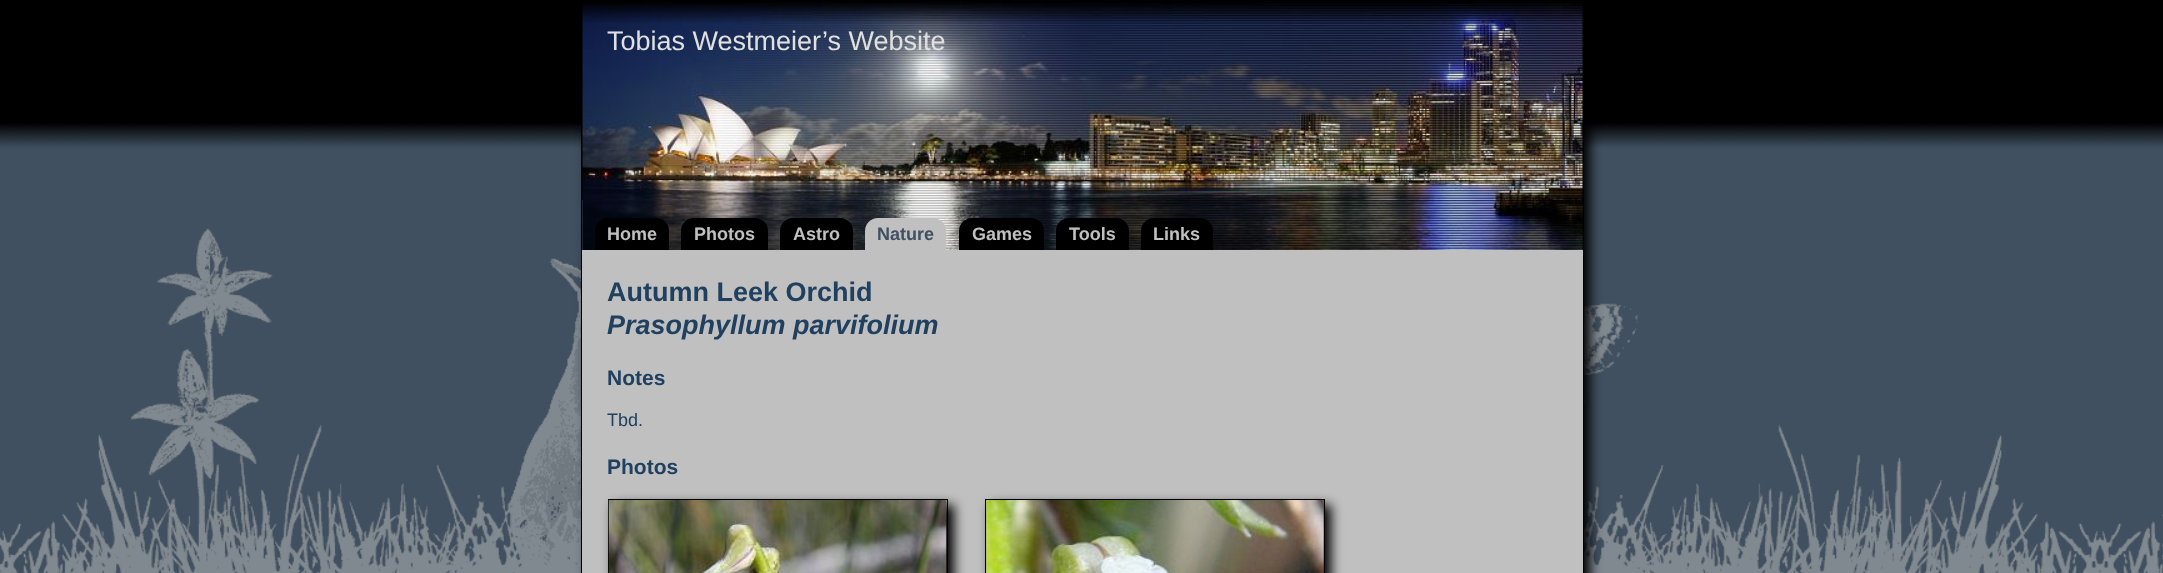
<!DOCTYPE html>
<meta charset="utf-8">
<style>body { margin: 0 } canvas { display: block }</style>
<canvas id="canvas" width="2163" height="573"></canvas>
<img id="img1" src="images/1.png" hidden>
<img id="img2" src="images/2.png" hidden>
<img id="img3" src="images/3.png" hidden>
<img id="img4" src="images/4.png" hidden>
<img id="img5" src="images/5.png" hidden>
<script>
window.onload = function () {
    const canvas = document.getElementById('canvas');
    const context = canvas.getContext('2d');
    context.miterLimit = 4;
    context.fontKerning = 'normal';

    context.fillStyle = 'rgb(64, 80, 96)';
    context.fillRect(0, 0, 2163, 573);
    context.drawImage(document.getElementById('img1'), 0, 0, 2163, 573);
    context.fillStyle = 'rgb(0, 0, 0)';
    context.filter = 'blur(6px)';
    context.beginPath();
    context.roundRect(588, 6, 1002, 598, 13);
    context.fill();
    context.filter = 'none';
    context.fillRect(581, 124, 1003, 76);
    context.drawImage(document.getElementById('img2'), 582, 0, 1001, 200);
    context.drawImage(document.getElementById('img3'), 582, 200, 1001, 50);
    context.beginPath();
    context.roundRect(595, 218, 74, 32, [13, 13, 0, 0]);
    context.fill();
    context.beginPath();
    context.roundRect(681, 218, 87, 32, [13, 13, 0, 0]);
    context.fill();
    context.beginPath();
    context.roundRect(780, 218, 73, 32, [13, 13, 0, 0]);
    context.fill();
    context.fillStyle = 'rgb(192, 192, 192)';
    context.beginPath();
    context.roundRect(865, 218, 81, 32, [13, 13, 0, 0]);
    context.fill();
    context.fillStyle = 'rgb(0, 0, 0)';
    context.beginPath();
    context.roundRect(959, 218, 85, 32, [13, 13, 0, 0]);
    context.fill();
    context.beginPath();
    context.roundRect(1056, 218, 73, 32, [13, 13, 0, 0]);
    context.fill();
    context.beginPath();
    context.roundRect(1141, 218, 72, 32, [13, 13, 0, 0]);
    context.fill();
    context.fillStyle = 'rgb(192, 192, 192)';
    context.fillRect(582, 250, 1001, 323);
    context.fillStyle = 'rgb(0, 0, 0)';
    context.fillRect(1583, 200, 1, 373);
    context.fillRect(581, 200, 1, 373);
    context.filter = 'blur(6px)';
    context.beginPath();
    context.rect(614, 505, 340, 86);
    context.fill();
    context.filter = 'none';
    context.strokeStyle = 'rgb(0, 0, 0)';
    context.strokeRect(608.5, 499.5, 339, 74);
    context.drawImage(document.getElementById('img4'), 608, 500, 339, 73);
    context.filter = 'blur(6px)';
    context.beginPath();
    context.rect(991, 505, 340, 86);
    context.fill();
    context.filter = 'none';
    context.strokeRect(985.5, 499.5, 339, 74);
    context.drawImage(document.getElementById('img5'), 986, 500, 338, 73);
    context.font = '27px Liberation Sans';
    context.fillStyle = 'rgb(224, 224, 224)';
    context.fillText('Tobias Westmeier’s Website', 607, 50);
    context.font = 'bold 18px Liberation Sans';
    context.fillStyle = 'rgb(192, 192, 192)';
    context.fillText('Home', 607, 240);
    context.fillText('Photos', 694, 240);
    context.fillText('Astro', 793, 240);
    context.fillStyle = 'rgb(64, 80, 96)';
    context.fillText('Nature', 877, 240);
    context.fillStyle = 'rgb(192, 192, 192)';
    context.fillText('Games', 972, 240);
    context.fillText('Tools', 1069, 240);
    context.fillText('Links', 1153, 240);
    context.font = 'bold 27px Liberation Sans';
    context.fillStyle = 'rgb(32, 64, 96)';
    context.fillText('Autumn Leek Orchid', 607, 301);
    context.font = 'italic bold 27px Liberation Sans';
    context.fillText('Prasophyllum parvifolium', 607, 334);
    context.font = 'bold 21px Liberation Sans';
    context.fillText('Notes', 607, 385);
    context.font = '18px Liberation Sans';
    context.fillText('Tbd.', 607, 426);
    context.font = 'bold 21px Liberation Sans';
    context.fillText('Photos', 607, 474);
};
</script>
